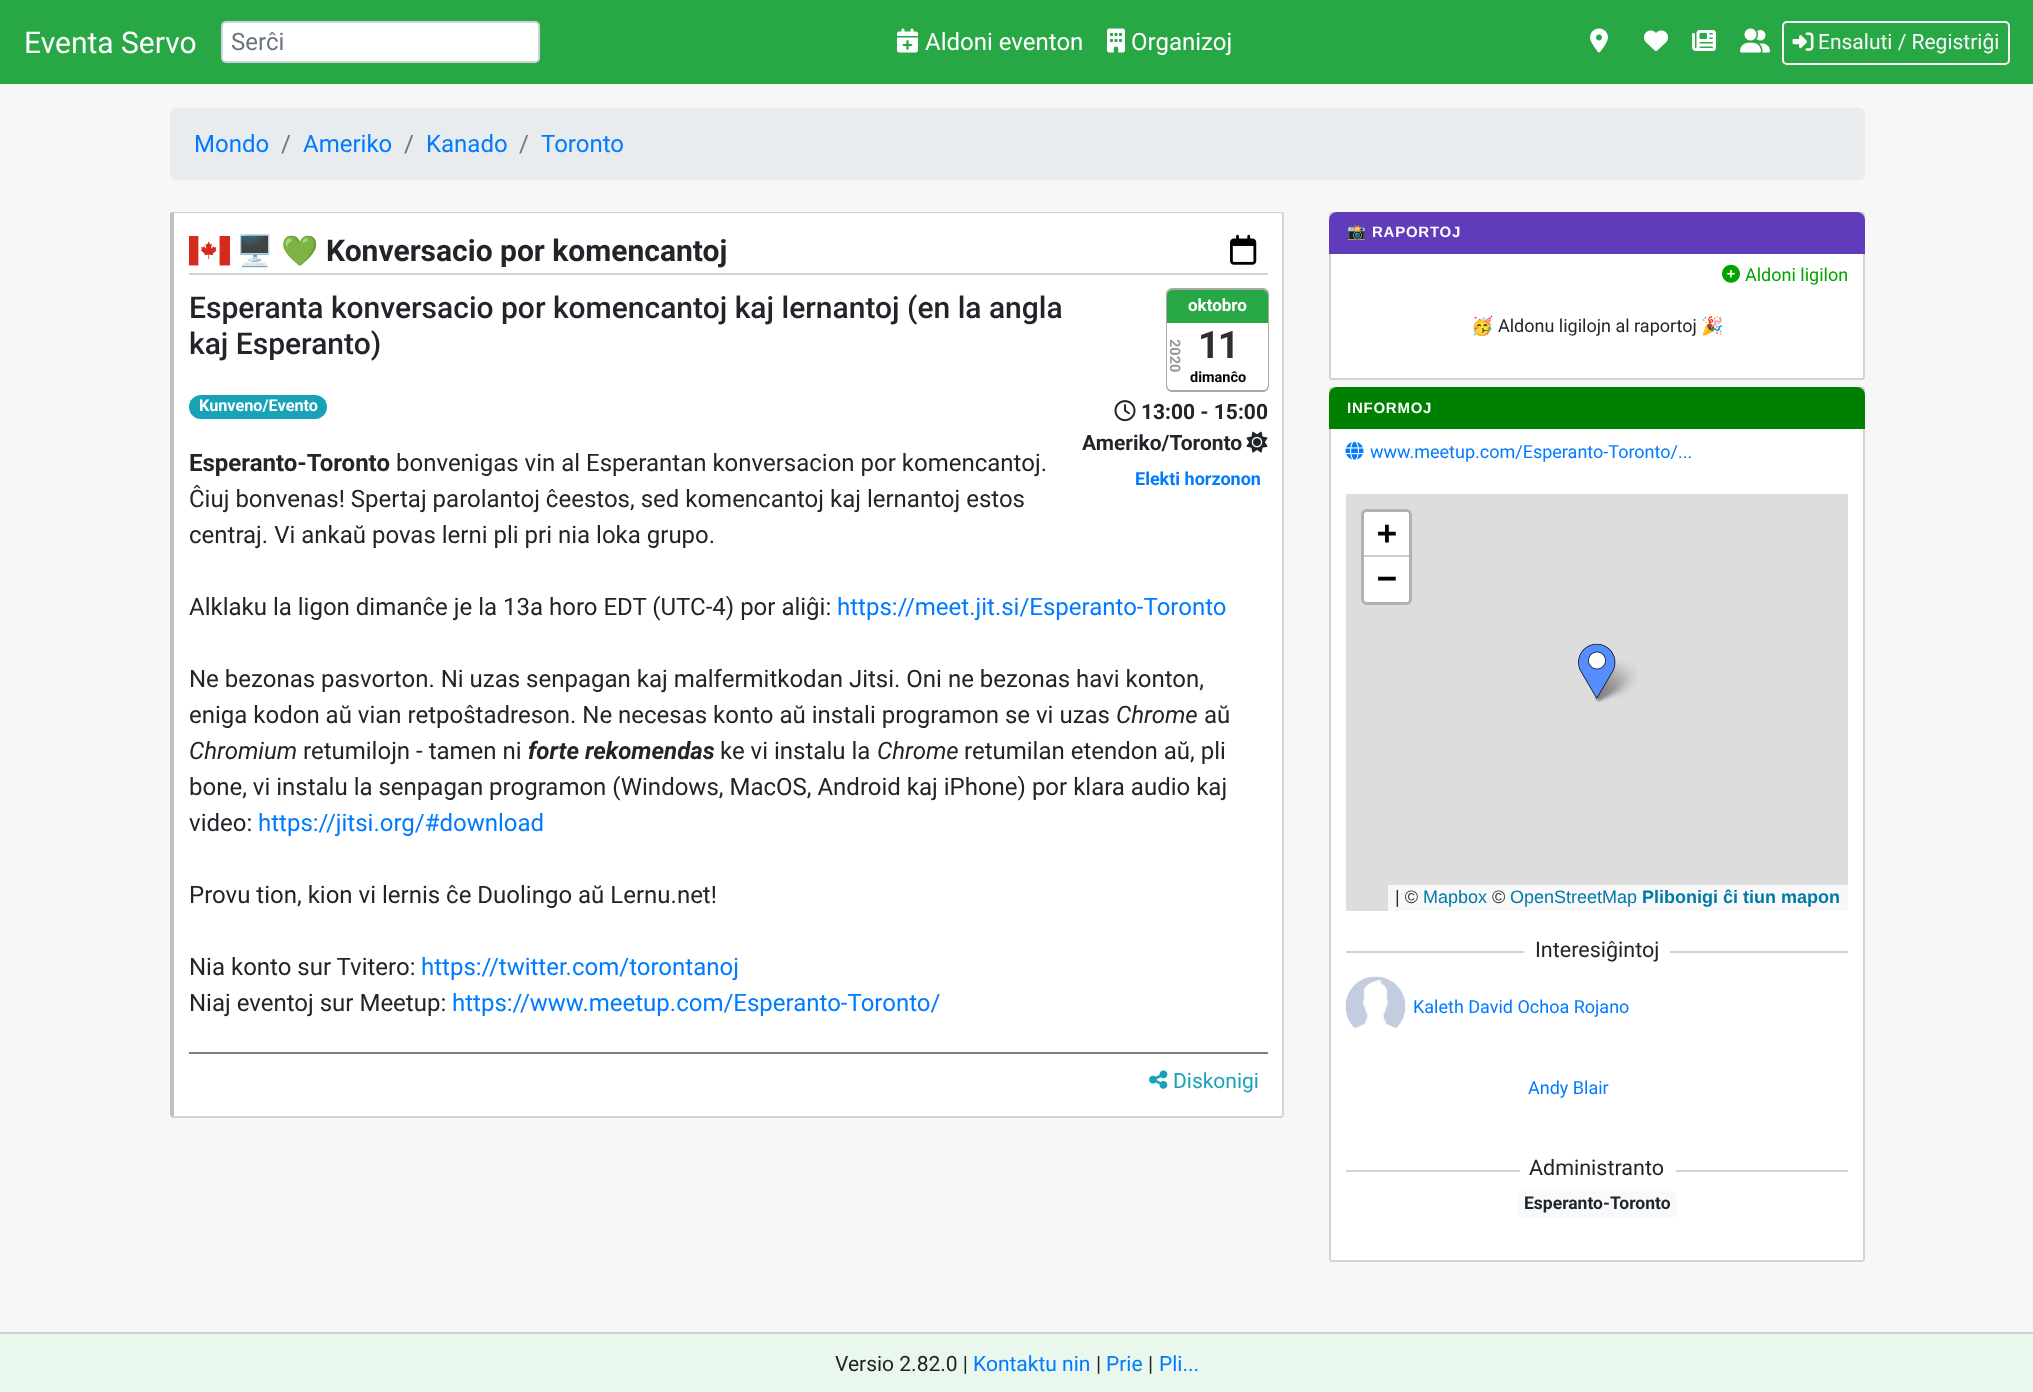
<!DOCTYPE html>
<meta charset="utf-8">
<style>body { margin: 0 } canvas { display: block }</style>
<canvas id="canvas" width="2033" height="1392"></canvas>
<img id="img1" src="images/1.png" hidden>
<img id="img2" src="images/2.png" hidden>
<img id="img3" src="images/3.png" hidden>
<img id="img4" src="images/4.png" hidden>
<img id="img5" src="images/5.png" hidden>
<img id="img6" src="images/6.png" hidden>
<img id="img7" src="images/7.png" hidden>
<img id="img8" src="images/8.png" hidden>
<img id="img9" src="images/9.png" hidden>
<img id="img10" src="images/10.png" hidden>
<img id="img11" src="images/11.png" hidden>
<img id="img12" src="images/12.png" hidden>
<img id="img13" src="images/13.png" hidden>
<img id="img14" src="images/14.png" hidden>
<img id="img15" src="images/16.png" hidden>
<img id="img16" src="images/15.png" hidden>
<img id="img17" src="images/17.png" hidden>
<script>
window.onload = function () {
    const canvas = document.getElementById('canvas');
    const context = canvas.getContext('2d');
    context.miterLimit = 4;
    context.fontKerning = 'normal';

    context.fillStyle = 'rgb(247, 247, 247)';
    context.fillRect(0, 0, 2033, 1392);
    context.fillStyle = 'rgb(40, 167, 69)';
    context.fillRect(0, 0, 2033, 84);
    context.fillStyle = 'rgb(255, 255, 255)';
    context.beginPath();
    context.roundRect(222, 22, 317, 40, 4);
    context.fill();
    context.strokeStyle = 'rgb(206, 212, 218)';
    context.lineWidth = 2;
    context.stroke();
    context.drawImage(document.getElementById('img1'), 897, 28, 21, 25);
    context.drawImage(document.getElementById('img2'), 1107, 28, 18, 25);
    context.drawImage(document.getElementById('img3'), 1590, 28, 18, 25);
    context.drawImage(document.getElementById('img4'), 1644, 30, 24, 21);
    context.drawImage(document.getElementById('img5'), 1692, 30, 24, 21);
    context.drawImage(document.getElementById('img6'), 1740, 28, 30, 25);
    context.beginPath();
    context.roundRect(1783, 22, 226, 42, 4);
    context.strokeStyle = 'rgb(248, 249, 250)';
    context.stroke();
    context.drawImage(document.getElementById('img7'), 1792, 32, 22, 19);
    context.fillStyle = 'rgb(233, 236, 239)';
    context.beginPath();
    context.roundRect(170, 108, 1695, 72, 6);
    context.fill();
    context.fillStyle = 'rgb(255, 255, 255)';
    context.beginPath();
    context.moveTo(174, 213);
    context.lineTo(1281, 213);
    context.bezierCurveTo(1282, 213, 1282, 214, 1282, 214);
    context.lineTo(1282, 1114);
    context.bezierCurveTo(1282, 1115, 1282, 1116, 1281, 1116);
    context.lineTo(174, 1116);
    context.closePath();
    context.fill();
    context.fillStyle = 'rgb(211, 211, 211)';
    context.beginPath();
    context.moveTo(172, 212);
    context.lineTo(171, 212);
    context.lineTo(174, 213);
    context.lineTo(1281, 213);
    context.lineTo(1282, 214);
    context.lineTo(1283, 212);
    context.lineTo(1281, 212);
    context.closePath();
    context.fill();
    context.beginPath();
    context.moveTo(1283, 212);
    context.lineTo(1284, 214);
    context.lineTo(1284, 1114);
    context.lineTo(1283, 1117);
    context.lineTo(1282, 1115);
    context.lineTo(1282, 214);
    context.closePath();
    context.fill();
    context.beginPath();
    context.moveTo(171, 1118);
    context.lineTo(171, 1117);
    context.lineTo(174, 1116);
    context.lineTo(1281, 1116);
    context.lineTo(1282, 1115);
    context.lineTo(1283, 1117);
    context.lineTo(1283, 1118);
    context.closePath();
    context.fill();
    context.fillStyle = 'rgb(192, 192, 192)';
    context.beginPath();
    context.moveTo(174, 213);
    context.lineTo(171, 212);
    context.lineTo(170, 214);
    context.lineTo(170, 1114);
    context.lineTo(171, 1117);
    context.lineTo(174, 1116);
    context.closePath();
    context.fill();
    context.fillStyle = 'rgb(211, 211, 211)';
    context.fillRect(189, 273, 1079, 2);
    context.drawImage(document.getElementById('img8'), 189, 236, 41, 30);
    context.drawImage(document.getElementById('img9'), 1230, 234, 27, 31);
    context.beginPath();
    context.roundRect(1167, 289, 101, 102, 5);
    context.strokeStyle = 'rgb(169, 169, 169)';
    context.stroke();
    context.fillStyle = 'rgb(255, 255, 255)';
    context.beginPath();
    context.roundRect(1167, 290, 101, 100, 5);
    context.fill();
    context.fillStyle = 'rgb(40, 167, 69)';
    context.beginPath();
    context.roundRect(1167, 290, 101, 33, [5, 5, 0, 0]);
    context.fill();
    context.drawImage(document.getElementById('img10'), 1114, 400, 22, 22);
    context.drawImage(document.getElementById('img11'), 1246, 431, 22, 22);
    context.fillStyle = 'rgb(23, 162, 184)';
    context.beginPath();
    context.roundRect(189, 395, 138, 24, 12);
    context.fill();
    context.fillStyle = 'rgb(128, 128, 128)';
    context.fillRect(189, 1052, 1079, 2);
    context.drawImage(document.getElementById('img12'), 1149, 1070, 19, 19);
    context.fillStyle = 'rgb(255, 255, 255)';
    context.beginPath();
    context.roundRect(1330, 213, 534, 166, 2);
    context.fill();
    context.strokeStyle = 'rgb(211, 211, 211)';
    context.stroke();
    context.fillStyle = 'rgb(96, 60, 186)';
    context.beginPath();
    context.roundRect(1329, 212, 536, 42, [8, 8, 0, 0]);
    context.fill();
    context.drawImage(document.getElementById('img13'), 1722, 264, 18, 19);
    context.fillStyle = 'rgb(255, 255, 255)';
    context.beginPath();
    context.roundRect(1330, 388, 534, 873, 2);
    context.fill();
    context.stroke();
    context.fillStyle = 'rgb(0, 128, 0)';
    context.beginPath();
    context.roundRect(1329, 387, 536, 42, [8, 8, 0, 0]);
    context.fill();
    context.drawImage(document.getElementById('img14'), 1345, 441, 19, 19);
    context.fillStyle = 'rgb(221, 221, 221)';
    context.fillRect(1346, 494, 502, 417);
    context.beginPath();
    context.roundRect(1362.5, 510.5, 48, 93, 4.5);
    context.strokeStyle = 'rgb(177, 177, 177)';
    context.lineWidth = 3;
    context.stroke();
    context.fillStyle = 'rgb(255, 255, 255)';
    context.beginPath();
    context.roundRect(1364, 512, 45, 45, [3, 3, 0, 0]);
    context.fill();
    context.fillStyle = 'rgb(204, 204, 204)';
    context.fillRect(1364, 555, 45, 2);
    context.fillStyle = 'rgb(255, 255, 255)';
    context.beginPath();
    context.roundRect(1364, 557, 45, 45, [0, 0, 3, 3]);
    context.fill();
    context.fillStyle = 'rgb(248, 248, 248)';
    context.fillRect(1388, 885, 460, 26);
    context.drawImage(document.getElementById('img15'), 1592, 660, 45, 42);
    context.drawImage(document.getElementById('img16'), 1578, 643, 38, 56);
    context.fillStyle = 'rgb(211, 211, 211)';
    context.fillRect(1346, 951, 178, 2);
    context.fillRect(1670, 951, 178, 2);
    context.drawImage(document.getElementById('img17'), 1345, 976, 61, 52);
    context.fillRect(1346, 1170, 174, 2);
    context.fillRect(1676, 1170, 172, 2);
    context.fillStyle = 'rgb(248, 249, 250)';
    context.beginPath();
    context.roundRect(1517, 1191, 160, 27, 6);
    context.fill();
    context.fillStyle = 'rgb(234, 247, 237)';
    context.fillRect(0, 1334, 2033, 58);
    context.fillStyle = 'rgb(211, 211, 211)';
    context.fillRect(0, 1332, 2033, 2);
    context.font = '30px Roboto';
    context.fillStyle = 'rgb(255, 255, 255)';
    context.fillText('Eventa Servo', 24, 53);
    context.font = '24px Roboto';
    context.fillStyle = 'rgb(108, 117, 125)';
    context.fillText('Serĉi', 231, 50);
    context.fillStyle = 'rgb(255, 255, 255)';
    context.fillText('Aldoni eventon', 925, 50);
    context.fillText('Organizoj', 1131, 50);
    context.font = '21px Roboto';
    context.fillStyle = 'rgb(248, 249, 250)';
    context.fillText('Ensaluti / Registriĝi', 1818, 49);
    context.font = '24px Roboto';
    context.fillStyle = 'rgb(0, 123, 255)';
    context.fillText('Mondo', 194, 152);
    context.fillStyle = 'rgb(108, 117, 125)';
    context.fillText('/', 281, 152);
    context.fillStyle = 'rgb(0, 123, 255)';
    context.fillText('Ameriko', 303, 152);
    context.fillStyle = 'rgb(108, 117, 125)';
    context.fillText('/', 404, 152);
    context.fillStyle = 'rgb(0, 123, 255)';
    context.fillText('Kanado', 426, 152);
    context.fillStyle = 'rgb(108, 117, 125)';
    context.fillText('/', 519, 152);
    context.fillStyle = 'rgb(0, 123, 255)';
    context.fillText('Toronto', 541, 152);
    context.font = 'bold 30px Noto Color Emoji';
    context.fillStyle = 'rgb(33, 37, 41)';
    context.fillText('🖥', 236, 261);
    context.fillText('💚', 281, 261);
    context.font = 'bold 30px Roboto';
    context.fillText('Konversacio por komencantoj', 326, 261);
    context.font = '500 30px Roboto';
    context.fillText('Esperanta konversacio por komencantoj kaj lernantoj (en la angla', 189, 318);
    context.fillText('kaj Esperanto)', 189, 354);
    context.font = 'bold 17px Roboto';
    context.fillStyle = 'rgb(255, 255, 255)';
    context.fillText('oktobro', 1188, 311);
    context.font = 'bold 14.5px Roboto';
    context.fillStyle = 'rgb(153, 153, 153)';
    context.save();
    context.translate(1170, 339);
    context.rotate(90 * Math.PI / 180);
    context.fillText('2020', 0, 0);
    context.restore();
    context.letterSpacing = '-2px';
    context.font = 'bold 38px Roboto';
    context.fillStyle = 'rgb(47, 47, 47)';
    context.fillText('11', 1198, 358);
    context.letterSpacing = '0px';
    context.font = 'bold 14.5px Roboto';
    context.fillStyle = 'rgb(0, 0, 0)';
    context.fillText('dimanĉo', 1190, 382);
    context.font = 'bold 21px Roboto';
    context.fillStyle = 'rgb(33, 37, 41)';
    context.fillText('13:00 - 15:00', 1141, 419);
    context.fillText('Ameriko/Toronto', 1082, 450);
    context.font = 'bold 18px Roboto';
    context.fillStyle = 'rgb(0, 123, 255)';
    context.fillText('Elekti horzonon', 1135, 485);
    context.font = 'bold 16.25px Roboto';
    context.fillStyle = 'rgb(255, 255, 255)';
    context.fillText('Kunveno/Evento', 199, 411);
    context.font = 'bold 24px Roboto';
    context.fillStyle = 'rgb(33, 37, 41)';
    context.fillText('Esperanto-Toronto', 189, 471);
    context.font = '24px Roboto';
    context.fillText('bonvenigas vin al Esperantan konversacion por komencantoj.', 396, 471);
    context.fillText('Ĉiuj bonvenas! Spertaj parolantoj ĉeestos, sed komencantoj kaj lernantoj estos', 189, 507);
    context.fillText('centraj. Vi ankaŭ povas lerni pli pri nia loka grupo.', 189, 543);
    context.fillText('Alklaku la ligon dimanĉe je la 13a horo EDT (UTC-4) por aliĝi:', 189, 615);
    context.fillStyle = 'rgb(0, 123, 255)';
    context.fillText('https://meet.jit.si/Esperanto-Toronto', 837, 615);
    context.fillStyle = 'rgb(33, 37, 41)';
    context.fillText('Ne bezonas pasvorton. Ni uzas senpagan kaj malfermitkodan Jitsi. Oni ne bezonas havi konton,', 189, 687);
    context.fillText('eniga kodon aŭ vian retpoŝtadreson. Ne necesas konto aŭ instali programon se vi uzas', 189, 723);
    context.font = 'italic 24px Roboto';
    context.fillText('Chrome', 1116, 723);
    context.font = '24px Roboto';
    context.fillText('aŭ', 1204, 723);
    context.font = 'italic 24px Roboto';
    context.fillText('Chromium', 189, 759);
    context.font = '24px Roboto';
    context.fillText('retumilojn - tamen ni', 303, 759);
    context.font = 'italic bold 24px Roboto';
    context.fillText('forte rekomendas', 528, 759);
    context.font = '24px Roboto';
    context.fillText('ke vi instalu la', 720, 759);
    context.font = 'italic 24px Roboto';
    context.fillText('Chrome', 877, 759);
    context.font = '24px Roboto';
    context.fillText('retumilan etendon aŭ, pli', 964, 759);
    context.fillText('bone, vi instalu la senpagan programon (Windows, MacOS, Android kaj iPhone) por klara audio kaj', 189, 795);
    context.fillText('video:', 189, 831);
    context.fillStyle = 'rgb(0, 123, 255)';
    context.fillText('https://jitsi.org/#download', 258, 831);
    context.fillStyle = 'rgb(33, 37, 41)';
    context.fillText('Provu tion, kion vi lernis ĉe Duolingo aŭ Lernu.net!', 189, 903);
    context.fillText('Nia konto sur Tvitero:', 189, 975);
    context.fillStyle = 'rgb(0, 123, 255)';
    context.fillText('https://twitter.com/torontanoj', 421, 975);
    context.fillStyle = 'rgb(33, 37, 41)';
    context.fillText('Niaj eventoj sur Meetup:', 189, 1011);
    context.fillStyle = 'rgb(0, 123, 255)';
    context.fillText('https://www.meetup.com/Esperanto-Toronto/', 452, 1011);
    context.font = '21px Roboto';
    context.fillStyle = 'rgb(23, 162, 184)';
    context.fillText('Diskonigi', 1173, 1088);
    context.letterSpacing = '0.75px';
    context.font = 'bold 15px Noto Color Emoji';
    context.fillStyle = 'rgb(255, 255, 255)';
    context.fillText('📸', 1347, 237);
    context.font = 'bold 15px Liberation Sans';
    context.fillText('RAPORTOJ', 1372, 237);
    context.letterSpacing = '0px';
    context.font = '18px Roboto';
    context.fillStyle = 'rgb(0, 163, 0)';
    context.fillText('Aldoni ligilon', 1745, 281);
    context.font = '18px Noto Color Emoji';
    context.fillStyle = 'rgb(33, 37, 41)';
    context.fillText('🥳', 1471, 332);
    context.font = '18px Roboto';
    context.fillText('Aldonu ligilojn al raportoj', 1498, 332);
    context.font = '18px Noto Color Emoji';
    context.fillText('🎉', 1701, 332);
    context.letterSpacing = '0.75px';
    context.font = 'bold 15px Liberation Sans';
    context.fillStyle = 'rgb(255, 255, 255)';
    context.fillText('INFORMOJ', 1347, 413);
    context.letterSpacing = '0px';
    context.font = '18px Roboto';
    context.fillStyle = 'rgb(0, 123, 255)';
    context.fillText('www.meetup.com/Esperanto-Toronto/...', 1370, 458);
    context.font = 'bold 33px DejaVu Sans Mono';
    context.fillStyle = 'rgb(0, 0, 0)';
    context.fillText('+', 1377, 544);
    context.fillText('−', 1377, 589);
    context.font = '18px Liberation Sans';
    context.fillStyle = 'rgb(47, 47, 47)';
    context.fillText('| ©', 1395, 903);
    context.fillStyle = 'rgb(0, 120, 168)';
    context.fillText('Mapbox', 1423, 903);
    context.fillStyle = 'rgb(47, 47, 47)';
    context.fillText('©', 1492, 903);
    context.fillStyle = 'rgb(0, 120, 168)';
    context.fillText('OpenStreetMap', 1510, 903);
    context.font = 'bold 18px Liberation Sans';
    context.fillText('Plibonigi ĉi tiun mapon', 1642, 903);
    context.font = '21.5px Roboto';
    context.fillStyle = 'rgb(33, 37, 41)';
    context.fillText('Interesiĝintoj', 1535, 957);
    context.font = '18px Roboto';
    context.fillStyle = 'rgb(0, 123, 255)';
    context.fillText('Kaleth David Ochoa Rojano', 1413, 1013);
    context.fillText('Andy Blair', 1528, 1094);
    context.font = '21.5px Roboto';
    context.fillStyle = 'rgb(33, 37, 41)';
    context.fillText('Administranto', 1529, 1175);
    context.font = 'bold 17.5px Roboto';
    context.fillText('Esperanto-Toronto', 1524, 1209);
    context.font = '21px Roboto';
    context.fillText('Versio 2.82.0 |', 835, 1371);
    context.fillStyle = 'rgb(0, 123, 255)';
    context.fillText('Kontaktu nin', 973, 1371);
    context.fillStyle = 'rgb(33, 37, 41)';
    context.fillText('|', 1096, 1371);
    context.fillStyle = 'rgb(0, 123, 255)';
    context.fillText('Prie', 1106, 1371);
    context.fillStyle = 'rgb(33, 37, 41)';
    context.fillText('|', 1148, 1371);
    context.fillStyle = 'rgb(0, 123, 255)';
    context.fillText('Pli...', 1159, 1371);
};
</script>
